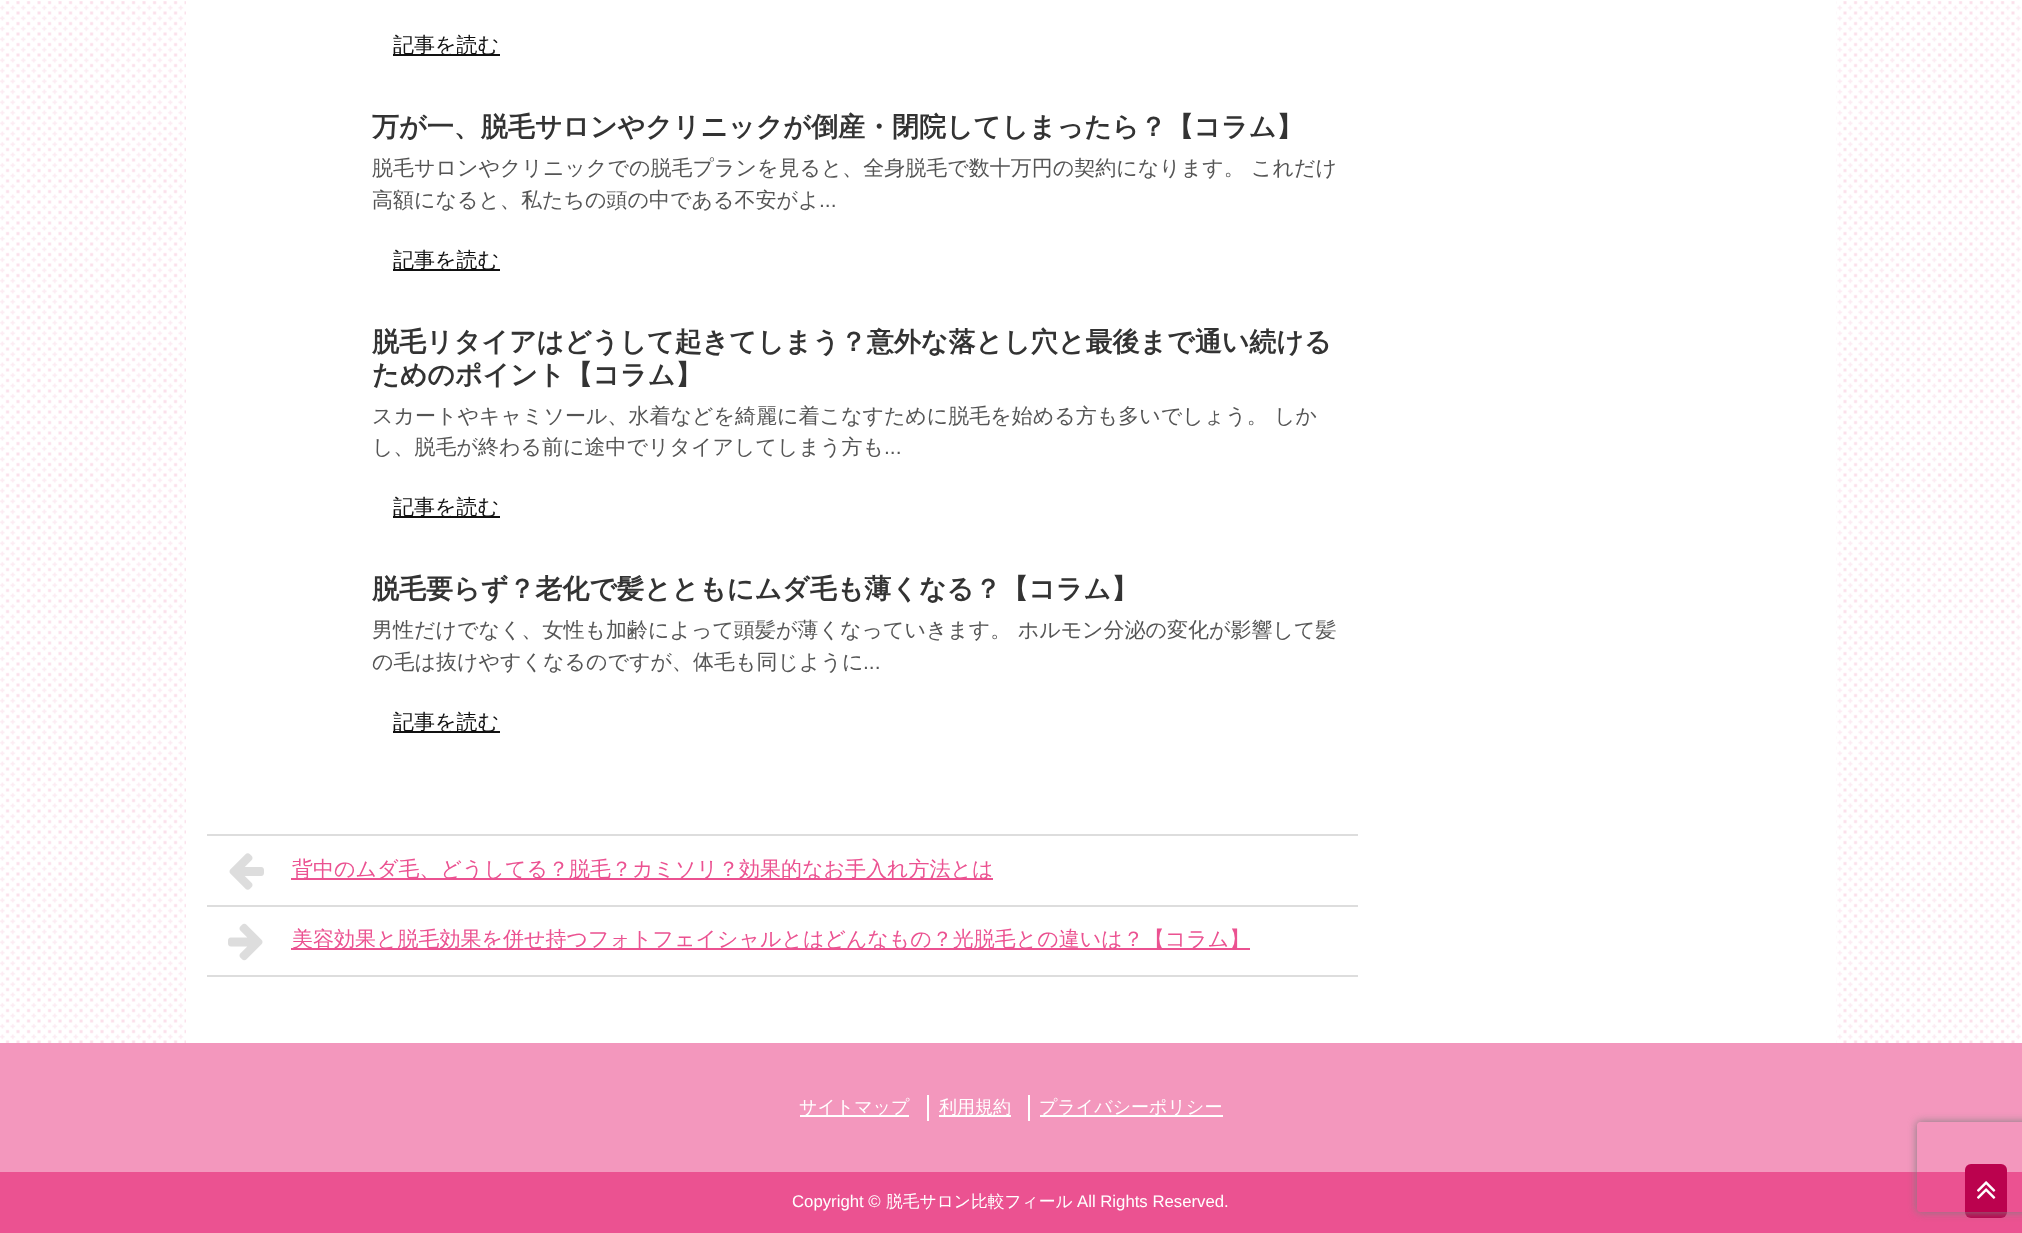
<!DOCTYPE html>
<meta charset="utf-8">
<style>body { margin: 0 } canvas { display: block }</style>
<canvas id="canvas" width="2022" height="1233"></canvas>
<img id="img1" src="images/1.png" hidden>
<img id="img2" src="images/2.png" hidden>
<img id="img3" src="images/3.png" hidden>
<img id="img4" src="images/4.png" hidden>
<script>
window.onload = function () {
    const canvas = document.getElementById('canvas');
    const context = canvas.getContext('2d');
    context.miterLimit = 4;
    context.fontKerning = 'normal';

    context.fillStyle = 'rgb(255, 255, 255)';
    context.fillRect(0, 0, 2022, 1233);
    context.drawImage(document.getElementById('img1'), 0, 1, 2021, 1042);
    context.fillRect(186, 1, 1650, 1042);
    context.fillStyle = 'rgb(17, 17, 17)';
    context.fillRect(393, 54, 107, 2);
    context.fillRect(393, 269, 107, 2);
    context.fillRect(393, 516, 107, 2);
    context.fillRect(393, 731, 107, 2);
    context.fillStyle = 'rgb(221, 221, 221)';
    context.fillRect(207, 834, 1151, 2);
    context.fillRect(207, 905, 1151, 2);
    context.drawImage(document.getElementById('img2'), 229, 853, 35, 37);
    context.fillStyle = 'rgb(235, 82, 145)';
    context.fillRect(291, 878, 702, 2);
    context.fillStyle = 'rgb(221, 221, 221)';
    context.fillRect(207, 975, 1151, 2);
    context.drawImage(document.getElementById('img3'), 228, 923, 35, 38);
    context.fillStyle = 'rgb(235, 82, 145)';
    context.fillRect(291, 948, 959, 2);
    context.fillStyle = 'rgb(243, 151, 189)';
    context.fillRect(0, 1043, 2022, 129);
    context.fillStyle = 'rgb(255, 255, 255)';
    context.fillRect(800, 1115, 109, 2);
    context.fillRect(927, 1095, 2, 26);
    context.fillRect(939, 1115, 72, 2);
    context.fillRect(1028, 1095, 2, 26);
    context.fillRect(1040, 1115, 183, 2);
    context.fillStyle = 'rgb(235, 82, 145)';
    context.fillRect(0, 1172, 2022, 61);
    context.fillStyle = 'rgb(187, 2, 78)';
    context.beginPath();
    context.roundRect(1965, 1164, 42, 54, 6);
    context.fill();
    context.drawImage(document.getElementById('img4'), 1977, 1181, 19, 18);
    context.save();
    context.beginPath();
    context.moveTo(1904, 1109);
    context.lineTo(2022, 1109);
    context.lineTo(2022, 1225);
    context.lineTo(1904, 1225);
    context.closePath();
    context.moveTo(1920, 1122);
    context.lineTo(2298, 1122);
    context.bezierCurveTo(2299.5, 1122, 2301, 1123.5, 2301, 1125);
    context.lineTo(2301, 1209);
    context.bezierCurveTo(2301, 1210.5, 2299.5, 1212, 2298, 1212);
    context.lineTo(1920, 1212);
    context.bezierCurveTo(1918.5, 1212, 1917, 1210.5, 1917, 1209);
    context.lineTo(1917, 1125);
    context.bezierCurveTo(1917, 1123.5, 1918.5, 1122, 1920, 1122);
    context.closePath();
    context.clip('evenodd');
    context.fillStyle = 'rgb(128, 128, 128)';
    context.filter = 'blur(4px)';
    context.beginPath();
    context.roundRect(1917, 1122, 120, 90, 3);
    context.fill();
    context.filter = 'none';
    context.restore();
    context.font = '500 21px WenQuanYi Zen Hei';
    context.fillStyle = 'rgb(17, 17, 17)';
    context.fillText('記事を読む', 393, 52);
    context.font = 'bold 27px WenQuanYi Zen Hei';
    context.fillStyle = 'rgb(51, 51, 51)';
    context.fillText('万が一、脱毛サロンやクリニックが倒産・閉院してしまったら？【コラム】', 372, 136);
    context.font = '500 21px WenQuanYi Zen Hei';
    context.fillStyle = 'rgb(85, 85, 85)';
    context.fillText('脱毛サロンやクリニックでの脱毛プランを見ると、全身脱毛で数十万円の契約になります。', 372, 175);
    context.fillText('これだけ', 1251, 175);
    context.fillText('高額になると、私たちの頭の中である不安がよ', 372, 207);
    context.font = '21px Liberation Sans';
    context.fillText('...', 819, 207);
    context.font = '500 21px WenQuanYi Zen Hei';
    context.fillStyle = 'rgb(17, 17, 17)';
    context.fillText('記事を読む', 393, 267);
    context.font = 'bold 27px WenQuanYi Zen Hei';
    context.fillStyle = 'rgb(51, 51, 51)';
    context.fillText('脱毛リタイアはどうして起きてしまう？意外な落とし穴と最後まで通い続ける', 372, 351);
    context.fillText('ためのポイント【コラム】', 372, 384);
    context.font = '500 21px WenQuanYi Zen Hei';
    context.fillStyle = 'rgb(85, 85, 85)';
    context.fillText('スカートやキャミソール、水着などを綺麗に着こなすために脱毛を始める方も多いでしょう。 しか', 372, 423);
    context.fillText('し、脱毛が終わる前に途中でリタイアしてしまう方も', 372, 454);
    context.font = '21px Liberation Sans';
    context.fillText('...', 884, 454);
    context.font = '500 21px WenQuanYi Zen Hei';
    context.fillStyle = 'rgb(17, 17, 17)';
    context.fillText('記事を読む', 393, 514);
    context.font = 'bold 27px WenQuanYi Zen Hei';
    context.fillStyle = 'rgb(51, 51, 51)';
    context.fillText('脱毛要らず？老化で髪とともにムダ毛も薄くなる？【コラム】', 372, 598);
    context.font = '500 21px WenQuanYi Zen Hei';
    context.fillStyle = 'rgb(85, 85, 85)';
    context.fillText('男性だけでなく、女性も加齢によって頭髪が薄くなっていきます。 ホルモン分泌の変化が影響して髪', 372, 637);
    context.fillText('の毛は抜けやすくなるのですが、体毛も同じように', 372, 669);
    context.font = '21px Liberation Sans';
    context.fillText('...', 863, 669);
    context.font = '500 21px WenQuanYi Zen Hei';
    context.fillStyle = 'rgb(17, 17, 17)';
    context.fillText('記事を読む', 393, 729);
    context.fillStyle = 'rgb(235, 82, 145)';
    context.fillText('背中のムダ毛、どうしてる？脱毛？カミソリ？効果的なお手入れ方法とは', 292, 876);
    context.fillText('美容効果と脱毛効果を併せ持つフォトフェイシャルとはどんなもの？光脱毛との違いは？【コラム】', 292, 946);
    context.font = '500 18px WenQuanYi Zen Hei';
    context.fillStyle = 'rgb(255, 255, 255)';
    context.fillText('サイトマップ', 799, 1113);
    context.fillText('利用規約', 939, 1113);
    context.fillText('プライバシーポリシー', 1039, 1113);
    context.font = '16.75px Liberation Sans';
    context.fillText('Copyright ©', 792, 1207);
    context.font = '500 16.75px WenQuanYi Zen Hei';
    context.fillText('脱毛サロン比較フィール', 886, 1207);
    context.font = '16.75px Liberation Sans';
    context.fillText('All Rights Reserved.', 1077, 1207);
};
</script>
